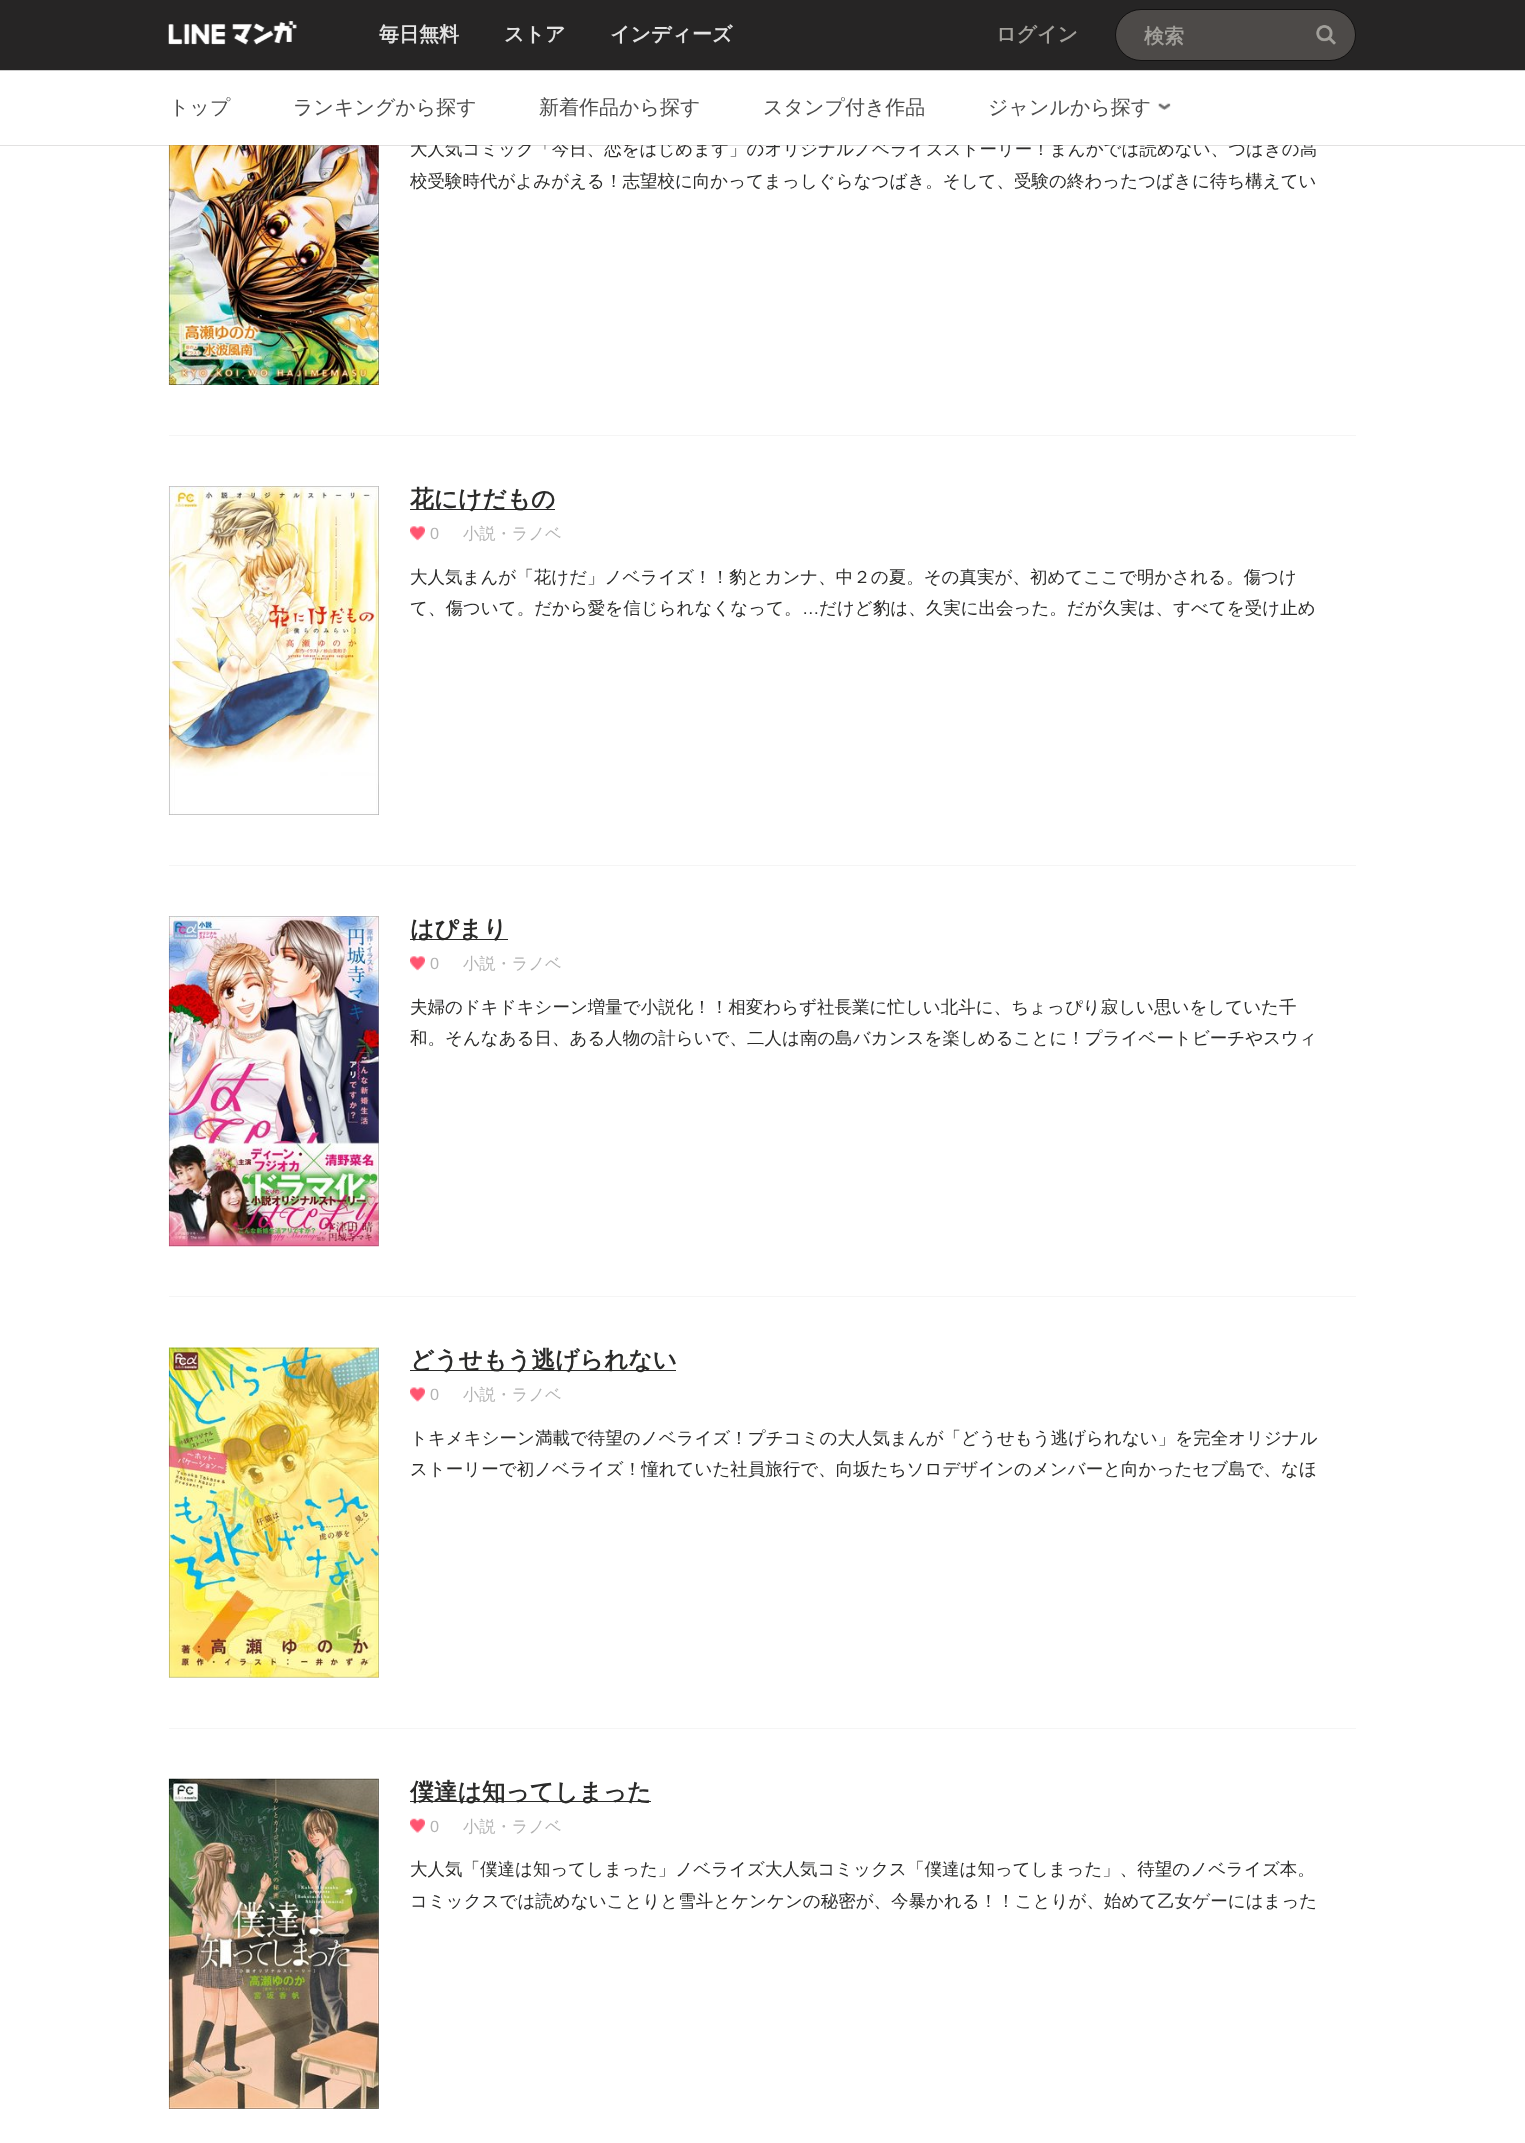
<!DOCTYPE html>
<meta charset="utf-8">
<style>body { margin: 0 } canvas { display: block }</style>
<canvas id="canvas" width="1525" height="2143"></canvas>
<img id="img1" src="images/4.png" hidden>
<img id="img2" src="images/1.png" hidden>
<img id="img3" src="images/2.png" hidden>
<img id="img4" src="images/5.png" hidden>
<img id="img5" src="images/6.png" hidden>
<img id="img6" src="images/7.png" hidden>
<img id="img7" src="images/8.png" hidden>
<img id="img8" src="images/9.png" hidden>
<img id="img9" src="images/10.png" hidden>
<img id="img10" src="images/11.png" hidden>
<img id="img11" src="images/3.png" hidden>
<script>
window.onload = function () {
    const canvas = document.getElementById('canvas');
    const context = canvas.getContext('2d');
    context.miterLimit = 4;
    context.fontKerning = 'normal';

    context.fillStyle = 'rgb(255, 255, 255)';
    context.fillRect(0, 0, 1525, 2143);
    context.drawImage(document.getElementById('img1'), 168, 145, 211, 240);
    context.strokeStyle = 'rgba(0, 0, 0, 0.1)';
    context.strokeRect(169.5, 59.5, 209, 325);
    context.fillStyle = 'rgb(38, 37, 37)';
    context.fillRect(0, 0, 1525, 70);
    context.drawImage(document.getElementById('img2'), 168, 21, 129, 24);
    context.fillStyle = 'rgb(77, 74, 72)';
    context.beginPath();
    context.roundRect(1115.5, 9.5, 240, 51, 25.5);
    context.fill();
    context.strokeStyle = 'rgb(18, 17, 17)';
    context.stroke();
    context.drawImage(document.getElementById('img3'), 1316, 25, 20, 20);
    context.fillStyle = 'rgb(204, 204, 204)';
    context.fillRect(0, 70, 1525, 1);
    context.fillStyle = 'rgb(245, 245, 245)';
    context.fillRect(169, 435, 1187, 1);
    context.drawImage(document.getElementById('img4'), 168, 486, 211, 329);
    context.strokeStyle = 'rgba(0, 0, 0, 0.1)';
    context.strokeRect(169.5, 486.5, 209, 328);
    context.fillStyle = 'rgb(43, 43, 42)';
    context.fillRect(410, 509, 145, 1);
    context.drawImage(document.getElementById('img5'), 410, 526, 15, 15);
    context.fillStyle = 'rgb(245, 245, 245)';
    context.fillRect(169, 865, 1187, 1);
    context.drawImage(document.getElementById('img6'), 168, 916, 211, 331);
    context.strokeRect(169.5, 916.5, 209, 329);
    context.fillStyle = 'rgb(43, 43, 42)';
    context.fillRect(410, 939, 98, 1);
    context.drawImage(document.getElementById('img5'), 410, 956, 15, 15);
    context.fillStyle = 'rgb(245, 245, 245)';
    context.fillRect(169, 1296, 1187, 1);
    context.drawImage(document.getElementById('img7'), 168, 1347, 211, 331);
    context.strokeRect(169.5, 1348.5, 209, 329);
    context.fillStyle = 'rgb(43, 43, 42)';
    context.fillRect(410, 1370, 266, 1);
    context.drawImage(document.getElementById('img8'), 410, 1387, 15, 15);
    context.fillStyle = 'rgb(245, 245, 245)';
    context.fillRect(169, 1728, 1187, 1);
    context.drawImage(document.getElementById('img9'), 168, 1778, 211, 331);
    context.strokeRect(169.5, 1779.5, 209, 329);
    context.fillStyle = 'rgb(43, 43, 42)';
    context.fillRect(410, 1801, 241, 1);
    context.drawImage(document.getElementById('img10'), 410, 1818, 15, 15);
    context.font = 'bold 20px WenQuanYi Zen Hei';
    context.fillStyle = 'rgb(227, 227, 227)';
    context.fillText('毎日無料', 379, 41);
    context.fillText('ストア', 504, 41);
    context.fillText('インディーズ', 610, 41);
    context.fillStyle = 'rgb(161, 159, 154)';
    context.fillText('ログイン', 996, 41);
    context.fillText('検索', 1144, 43);
    context.font = '500 17.5px WenQuanYi Zen Hei';
    context.fillStyle = 'rgb(43, 43, 42)';
    context.fillText('大人気コミック「今日、恋をはじめます」のオリジナルノベライズストーリー！まんがでは読めない、つばきの高', 410, 155);
    context.fillStyle = 'rgba(111, 107, 107, 0.2)';
    context.fillRect(0, 145, 1525, 1);
    context.fillStyle = 'rgb(255, 255, 255)';
    context.fillRect(169, 71, 1148, 74);
    context.drawImage(document.getElementById('img11'), 1158, 103, 13, 7);
    context.font = '500 20px WenQuanYi Zen Hei';
    context.fillStyle = 'rgb(77, 77, 77)';
    context.fillText('ジャンルから探す', 988, 114);
    context.fillText('スタンプ付き作品', 763, 114);
    context.fillText('新着作品から探す', 539, 114);
    context.fillText('ランキングから探す', 293, 114);
    context.fillText('トップ', 169, 114);
    context.font = '500 17.5px WenQuanYi Zen Hei';
    context.fillStyle = 'rgb(43, 43, 42)';
    context.fillText('校受験時代がよみがえる！志望校に向かってまっしぐらなつばき。そして、受験の終わったつばきに待ち構えてい', 410, 187);
    context.font = 'bold 23.75px WenQuanYi Zen Hei';
    context.fillText('花にけだもの', 410, 507);
    context.font = '16.25px Liberation Sans';
    context.fillStyle = 'rgb(179, 179, 179)';
    context.fillText('0', 430, 539);
    context.font = '500 16.25px WenQuanYi Zen Hei';
    context.fillText('小説・ラノベ', 463, 539);
    context.font = '500 17.5px WenQuanYi Zen Hei';
    context.fillStyle = 'rgb(43, 43, 42)';
    context.fillText('大人気まんが「花けだ」ノベライズ！！豹とカンナ、中２の夏。その真実が、初めてここで明かされる。傷つけ', 410, 583);
    context.fillText('て、傷ついて。だから愛を信じられなくなって。', 410, 614);
    context.font = '17.5px Liberation Sans';
    context.fillText('…', 802, 614);
    context.font = '500 17.5px WenQuanYi Zen Hei';
    context.fillText('だけど豹は、久実に出会った。だが久実は、すべてを受け止め', 819, 614);
    context.font = 'bold 23.75px WenQuanYi Zen Hei';
    context.fillText('はぴまり', 410, 937);
    context.font = '16.25px Liberation Sans';
    context.fillStyle = 'rgb(179, 179, 179)';
    context.fillText('0', 430, 969);
    context.font = '500 16.25px WenQuanYi Zen Hei';
    context.fillText('小説・ラノベ', 463, 969);
    context.font = '500 17.5px WenQuanYi Zen Hei';
    context.fillStyle = 'rgb(43, 43, 42)';
    context.fillText('夫婦のドキドキシーン増量で小説化！！相変わらず社長業に忙しい北斗に、ちょっぴり寂しい思いをしていた千', 410, 1013);
    context.fillText('和。そんなある日、ある人物の計らいで、二人は南の島バカンスを楽しめることに！プライベートビーチやスウィ', 410, 1044);
    context.font = 'bold 23.75px WenQuanYi Zen Hei';
    context.fillText('どうせもう逃げられない', 410, 1368);
    context.font = '16.25px Liberation Sans';
    context.fillStyle = 'rgb(179, 179, 179)';
    context.fillText('0', 430, 1400);
    context.font = '500 16.25px WenQuanYi Zen Hei';
    context.fillText('小説・ラノベ', 463, 1400);
    context.font = '500 17.5px WenQuanYi Zen Hei';
    context.fillStyle = 'rgb(43, 43, 42)';
    context.fillText('トキメキシーン満載で待望のノベライズ！プチコミの大人気まんが「どうせもう逃げられない」を完全オリジナル', 410, 1444);
    context.fillText('ストーリーで初ノベライズ！憧れていた社員旅行で、向坂たちソロデザインのメンバーと向かったセブ島で、なほ', 410, 1475);
    context.font = 'bold 23.75px WenQuanYi Zen Hei';
    context.fillText('僕達は知ってしまった', 410, 1800);
    context.font = '16.25px Liberation Sans';
    context.fillStyle = 'rgb(179, 179, 179)';
    context.fillText('0', 430, 1832);
    context.font = '500 16.25px WenQuanYi Zen Hei';
    context.fillText('小説・ラノベ', 463, 1832);
    context.font = '500 17.5px WenQuanYi Zen Hei';
    context.fillStyle = 'rgb(43, 43, 42)';
    context.fillText('大人気「僕達は知ってしまった」ノベライズ大人気コミックス「僕達は知ってしまった」、待望のノベライズ本。', 410, 1875);
    context.fillText('コミックスでは読めないことりと雪斗とケンケンの秘密が、今暴かれる！！ことりが、始めて乙女ゲーにはまった', 410, 1907);
};
</script>
